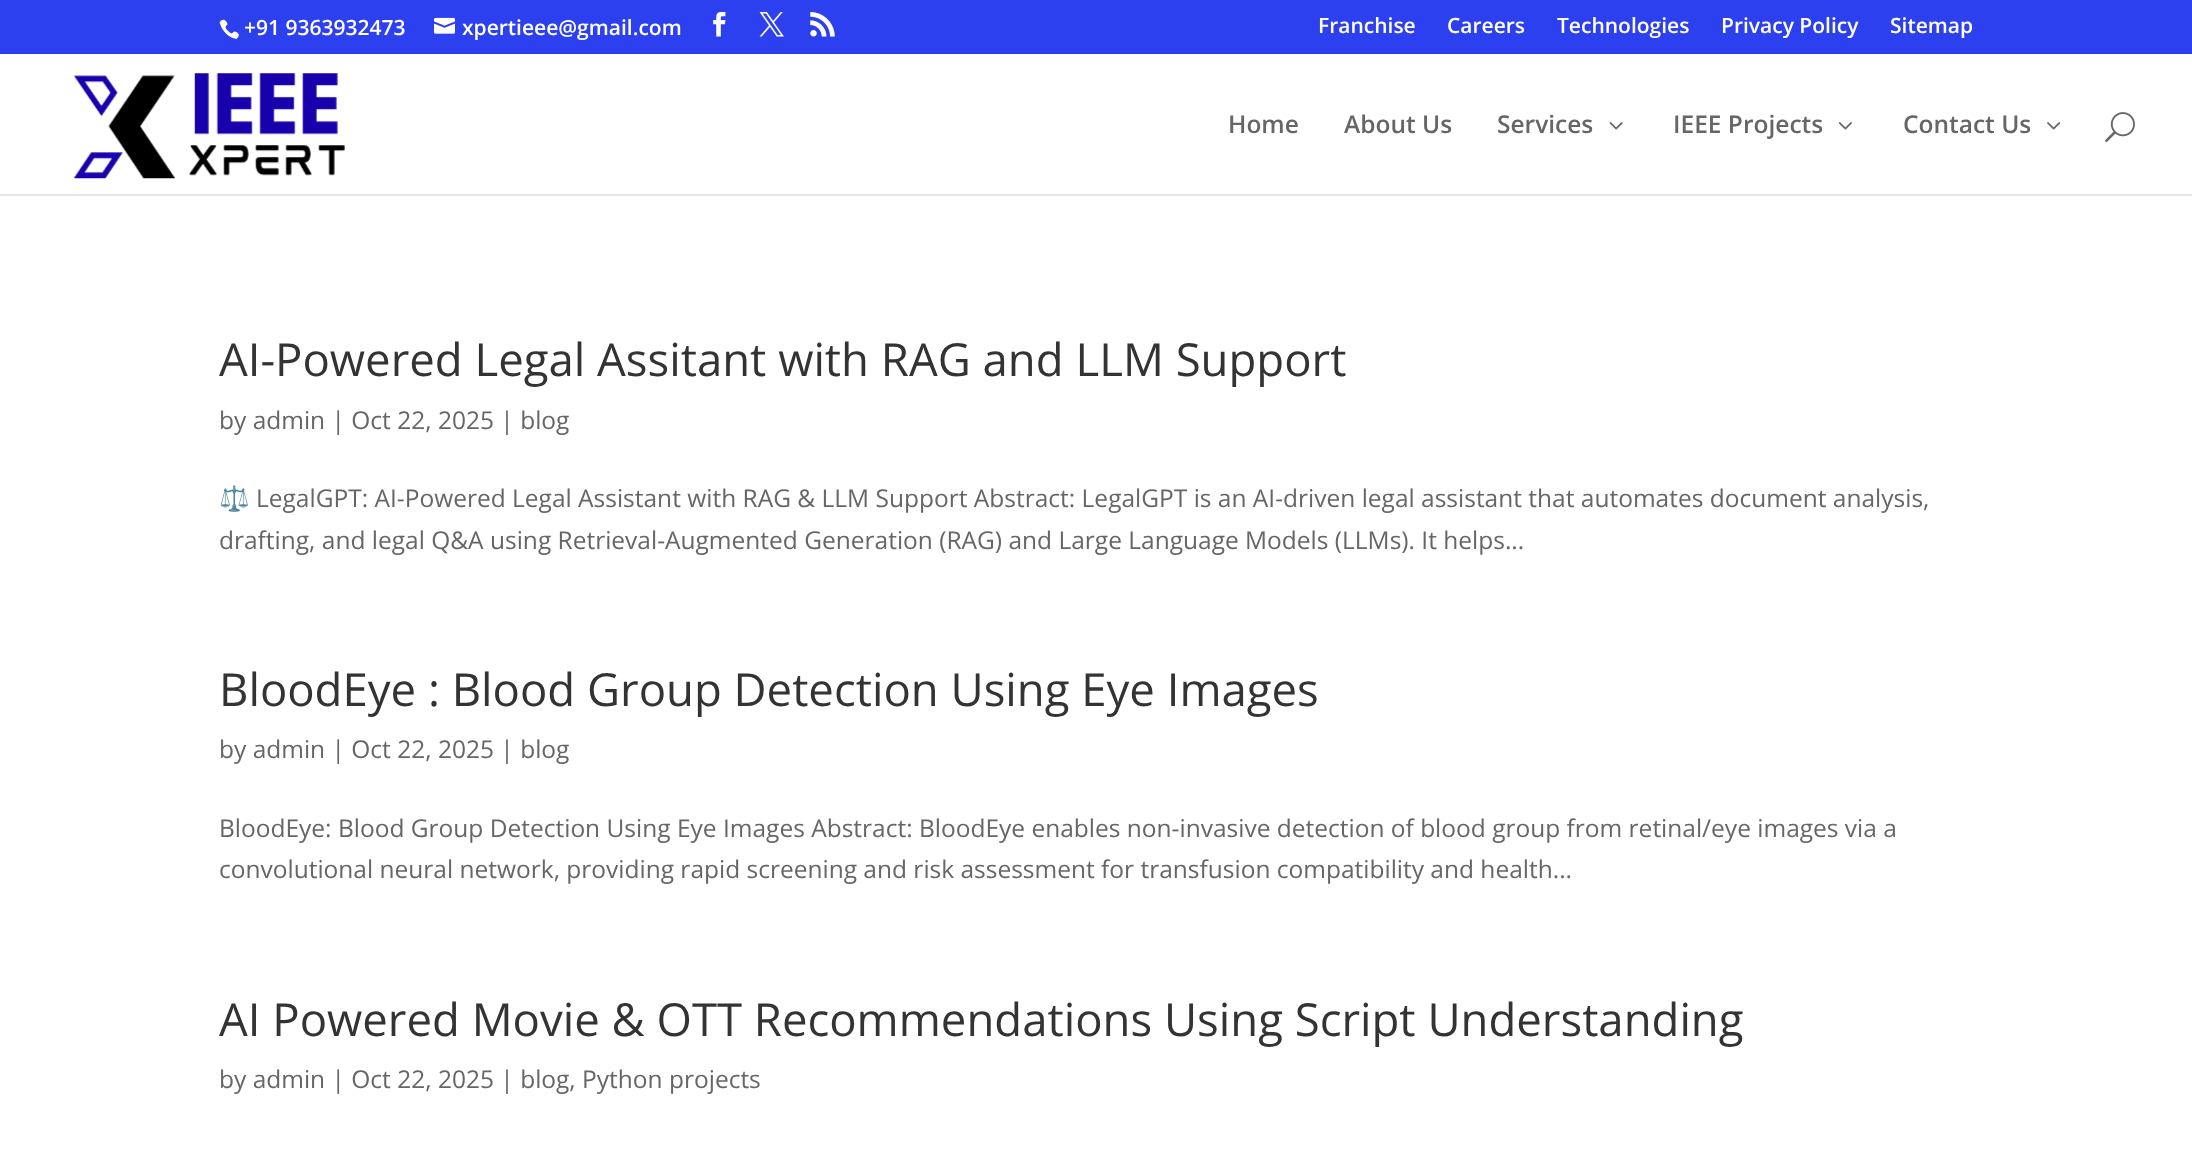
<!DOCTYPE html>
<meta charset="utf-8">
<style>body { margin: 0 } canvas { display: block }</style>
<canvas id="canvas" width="2192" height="1155"></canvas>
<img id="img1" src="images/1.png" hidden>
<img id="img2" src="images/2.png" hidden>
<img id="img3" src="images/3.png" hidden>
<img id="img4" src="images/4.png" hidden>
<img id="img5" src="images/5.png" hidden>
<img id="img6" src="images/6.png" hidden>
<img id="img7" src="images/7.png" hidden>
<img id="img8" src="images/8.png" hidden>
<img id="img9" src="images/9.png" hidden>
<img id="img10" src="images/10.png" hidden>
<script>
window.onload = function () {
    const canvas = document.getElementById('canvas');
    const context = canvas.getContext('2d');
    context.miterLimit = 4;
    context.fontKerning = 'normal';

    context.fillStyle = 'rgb(255, 255, 255)';
    context.fillRect(0, 0, 2192, 1155);
    context.fillStyle = 'rgb(45, 64, 239)';
    context.fillRect(0, 0, 2192, 54);
    context.drawImage(document.getElementById('img1'), 219, 19, 20, 20);
    context.drawImage(document.getElementById('img2'), 434, 17, 21, 17);
    context.drawImage(document.getElementById('img3'), 713, 12, 13, 25);
    context.drawImage(document.getElementById('img4'), 759, 12, 25, 25);
    context.drawImage(document.getElementById('img5'), 810, 12, 25, 25);
    context.fillStyle = 'rgb(230, 230, 230)';
    context.beginPath();
    context.moveTo(0, 194);
    context.lineTo(0, 196);
    context.lineTo(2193, 196);
    context.lineTo(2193, 56);
    context.lineTo(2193, 194);
    context.closePath();
    context.fill();
    context.drawImage(document.getElementById('img6'), 73, 73, 272, 106);
    context.drawImage(document.getElementById('img7'), 1609, 122, 14, 8);
    context.drawImage(document.getElementById('img8'), 1838, 122, 14, 8);
    context.drawImage(document.getElementById('img9'), 2047, 122, 14, 8);
    context.drawImage(document.getElementById('img10'), 2105, 112, 30, 30);
    context.font = '600 21px Open Sans';
    context.fillStyle = 'rgb(255, 255, 255)';
    context.fillText('+91 9363932473', 244, 35);
    context.fillText('xpertieee@gmail.com', 462, 35);
    context.fillText('Franchise', 1318, 33);
    context.fillText('Careers', 1447, 33);
    context.fillText('Technologies', 1557, 33);
    context.fillText('Privacy Policy', 1721, 33);
    context.fillText('Sitemap', 1890, 33);
    context.font = '600 24.5px Open Sans';
    context.fillStyle = 'rgb(102, 102, 102)';
    context.fillText('Home', 1228, 133);
    context.fillText('About Us', 1344, 133);
    context.fillText('Services', 1497, 133);
    context.fillText('IEEE Projects', 1673, 133);
    context.fillText('Contact Us', 1903, 133);
    context.font = '45.5px Open Sans';
    context.fillStyle = 'rgb(51, 51, 51)';
    context.fillText('AI-Powered Legal Assitant with RAG and LLM Support', 219, 376);
    context.font = '24.5px Open Sans';
    context.fillStyle = 'rgb(102, 102, 102)';
    context.fillText('by admin | Oct 22, 2025 | blog', 219, 429);
    context.font = '24.5px Noto Color Emoji';
    context.fillText('⚖️', 219, 507);
    context.font = '24.5px Open Sans';
    context.fillText('LegalGPT: AI-Powered Legal Assistant with RAG & LLM Support Abstract: LegalGPT is an AI-driven legal assistant that automates document analysis,', 256, 507);
    context.fillText('drafting, and legal Q&A using Retrieval-Augmented Generation (RAG) and Large Language Models (LLMs). It helps...', 219, 549);
    context.font = '45.5px Open Sans';
    context.fillStyle = 'rgb(51, 51, 51)';
    context.fillText('BloodEye : Blood Group Detection Using Eye Images', 219, 706);
    context.font = '24.5px Open Sans';
    context.fillStyle = 'rgb(102, 102, 102)';
    context.fillText('by admin | Oct 22, 2025 | blog', 219, 758);
    context.fillText('BloodEye: Blood Group Detection Using Eye Images Abstract: BloodEye enables non-invasive detection of blood group from retinal/eye images via a', 219, 837);
    context.fillText('convolutional neural network, providing rapid screening and risk assessment for transfusion compatibility and health...', 219, 878);
    context.font = '45.5px Open Sans';
    context.fillStyle = 'rgb(51, 51, 51)';
    context.fillText('AI Powered Movie & OTT Recommendations Using Script Understanding', 219, 1036);
    context.font = '24.5px Open Sans';
    context.fillStyle = 'rgb(102, 102, 102)';
    context.fillText('by admin | Oct 22, 2025 | blog, Python projects', 219, 1088);
};
</script>
